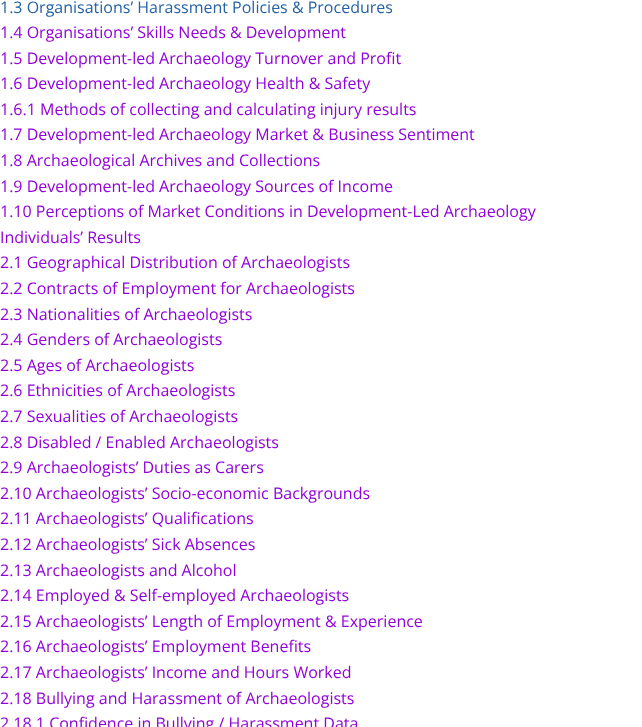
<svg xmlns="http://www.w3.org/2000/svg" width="642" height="727">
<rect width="100%" height="100%" fill="#fff"/>
<text x="0" y="13" style="font-family:Open Sans;font-size:16px;fill:#2662a4">1.3 Organisations’ Harassment Policies &amp; Procedures</text>
<text x="0" y="38" style="font-family:Open Sans;font-size:16px;fill:#9103d8">1.4 Organisations’ Skills Needs &amp; Development</text>
<text x="0" y="64" style="font-family:Open Sans;font-size:16px;fill:#9103d8">1.5 Development-led Archaeology Turnover and Profit</text>
<text x="0" y="89" style="font-family:Open Sans;font-size:16px;fill:#9103d8">1.6 Development-led Archaeology Health &amp; Safety</text>
<text x="0" y="115" style="font-family:Open Sans;font-size:16px;fill:#9103d8">1.6.1 Methods of collecting and calculating injury results</text>
<text x="0" y="140" style="font-family:Open Sans;font-size:16px;fill:#9103d8">1.7 Development-led Archaeology Market &amp; Business Sentiment</text>
<text x="0" y="166" style="font-family:Open Sans;font-size:16px;fill:#9103d8">1.8 Archaeological Archives and Collections</text>
<text x="0" y="192" style="font-family:Open Sans;font-size:16px;fill:#9103d8">1.9 Development-led Archaeology Sources of Income</text>
<text x="0" y="217" style="font-family:Open Sans;font-size:16px;fill:#9103d8">1.10 Perceptions of Market Conditions in Development-Led Archaeology</text>
<text x="0" y="243" style="font-family:Open Sans;font-size:16px;fill:#9103d8">Individuals’ Results</text>
<text x="0" y="268" style="font-family:Open Sans;font-size:16px;fill:#9103d8">2.1 Geographical Distribution of Archaeologists</text>
<text x="0" y="294" style="font-family:Open Sans;font-size:16px;fill:#9103d8">2.2 Contracts of Employment for Archaeologists</text>
<text x="0" y="320" style="font-family:Open Sans;font-size:16px;fill:#9103d8">2.3 Nationalities of Archaeologists</text>
<text x="0" y="345" style="font-family:Open Sans;font-size:16px;fill:#9103d8">2.4 Genders of Archaeologists</text>
<text x="0" y="371" style="font-family:Open Sans;font-size:16px;fill:#9103d8">2.5 Ages of Archaeologists</text>
<text x="0" y="396" style="font-family:Open Sans;font-size:16px;fill:#9103d8">2.6 Ethnicities of Archaeologists</text>
<text x="0" y="422" style="font-family:Open Sans;font-size:16px;fill:#9103d8">2.7 Sexualities of Archaeologists</text>
<text x="0" y="448" style="font-family:Open Sans;font-size:16px;fill:#9103d8">2.8 Disabled / Enabled Archaeologists</text>
<text x="0" y="473" style="font-family:Open Sans;font-size:16px;fill:#9103d8">2.9 Archaeologists’ Duties as Carers</text>
<text x="0" y="499" style="font-family:Open Sans;font-size:16px;fill:#9103d8">2.10 Archaeologists’ Socio-economic Backgrounds</text>
<text x="0" y="524" style="font-family:Open Sans;font-size:16px;fill:#9103d8">2.11 Archaeologists’ Qualifications</text>
<text x="0" y="550" style="font-family:Open Sans;font-size:16px;fill:#9103d8">2.12 Archaeologists’ Sick Absences</text>
<text x="0" y="576" style="font-family:Open Sans;font-size:16px;fill:#9103d8">2.13 Archaeologists and Alcohol</text>
<text x="0" y="601" style="font-family:Open Sans;font-size:16px;fill:#9103d8">2.14 Employed &amp; Self-employed Archaeologists</text>
<text x="0" y="627" style="font-family:Open Sans;font-size:16px;fill:#9103d8">2.15 Archaeologists’ Length of Employment &amp; Experience</text>
<text x="0" y="652" style="font-family:Open Sans;font-size:16px;fill:#9103d8">2.16 Archaeologists’ Employment Benefits</text>
<text x="0" y="678" style="font-family:Open Sans;font-size:16px;fill:#9103d8">2.17 Archaeologists’ Income and Hours Worked</text>
<text x="0" y="704" style="font-family:Open Sans;font-size:16px;fill:#9103d8">2.18 Bullying and Harassment of Archaeologists</text>
<text x="0" y="729" style="font-family:Open Sans;font-size:16px;fill:#9103d8">2.18.1 Confidence in Bullying / Harassment Data</text>
</svg>
